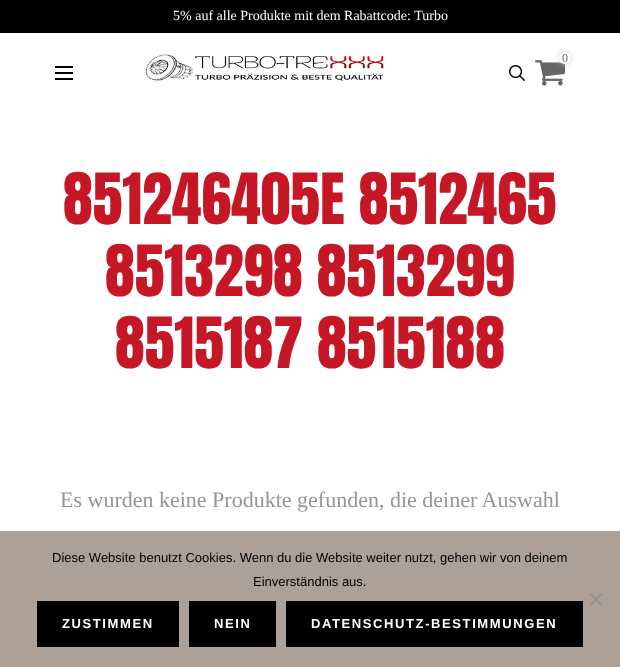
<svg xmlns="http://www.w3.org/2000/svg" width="620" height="667">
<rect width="100%" height="100%" fill="#fff"/>
<rect width="620" height="33" fill="#000"/>
<text x="173" y="20" style="font-family:Liberation Serif;font-size:14px;fill:#fff">5% auf alle Produkte mit dem Rabattcode: Turbo</text>
<image x="145" y="54" width="239" height="27" href="media/1.png"/>
<image x="535" y="60" width="30" height="26" href="media/2.png"/>
<rect x="559" y="52" width="12" height="12" rx="6" fill="#ccc" filter="blur(2.5px)"/>
<circle cx="565" cy="58" r="6" fill="#fff"/>
<text x="562" y="62" style="font-family:Liberation Serif;font-size:12px;fill:#666">0</text>
<image x="509" y="65" width="16" height="16" href="media/3.png"/>
<rect x="55" y="72" width="18" height="2" fill="#000"/>
<rect x="55" y="66" width="18" height="2" fill="#000"/>
<rect x="55" y="78" width="18" height="2" fill="#000"/>
<text x="63" y="224" style="font-family:Anton;font-size:60px;fill:#c61727">851246405E 8512465</text>
<text x="105" y="296" style="font-family:Anton;font-size:60px;fill:#c61727">8513298 8513299</text>
<text x="115" y="368" style="font-family:Anton;font-size:60px;fill:#c61727">8515187 8515188</text>
<text x="60" y="507" style="font-family:Liberation Serif;font-size:22px;fill:#959595">Es wurden keine Produkte gefunden, die deiner Auswahl</text>
<rect y="531" width="620" height="136" fill="#ada097"/>
<text x="52" y="562" style="font-family:Liberation Sans;font-size:13px;fill:#000">Diese Website benutzt Cookies. Wenn du die Website weiter nutzt, gehen wir von deinem</text>
<text x="253" y="586" style="font-family:Liberation Sans;font-size:13px;fill:#000">Einverständnis aus.</text>
<path d="M600.5 593.5l1.5 1l-10.5 11l-1.5-1.5z" fill="#97908c"/>
<path d="M590 594.5l1.5-1l10.5 10.5l-1.5 1.5z" fill="#97908c"/>
<rect x="37" y="601" width="142" height="46" fill="#000"/>
<text x="62" y="628" style="font-family:Liberation Sans;font-size:13px;font-weight:bold;letter-spacing:1.6px;fill:#fff">ZUSTIMMEN</text>
<rect x="189" y="601" width="87" height="46" fill="#000"/>
<text x="214" y="628" style="font-family:Liberation Sans;font-size:13px;font-weight:bold;letter-spacing:1.6px;fill:#fff">NEIN</text>
<rect x="286" y="601" width="297" height="46" fill="#000"/>
<text x="311" y="628" style="font-family:Liberation Sans;font-size:13px;font-weight:bold;letter-spacing:1.6px;fill:#fff">DATENSCHUTZ-BESTIMMUNGEN</text>
</svg>
